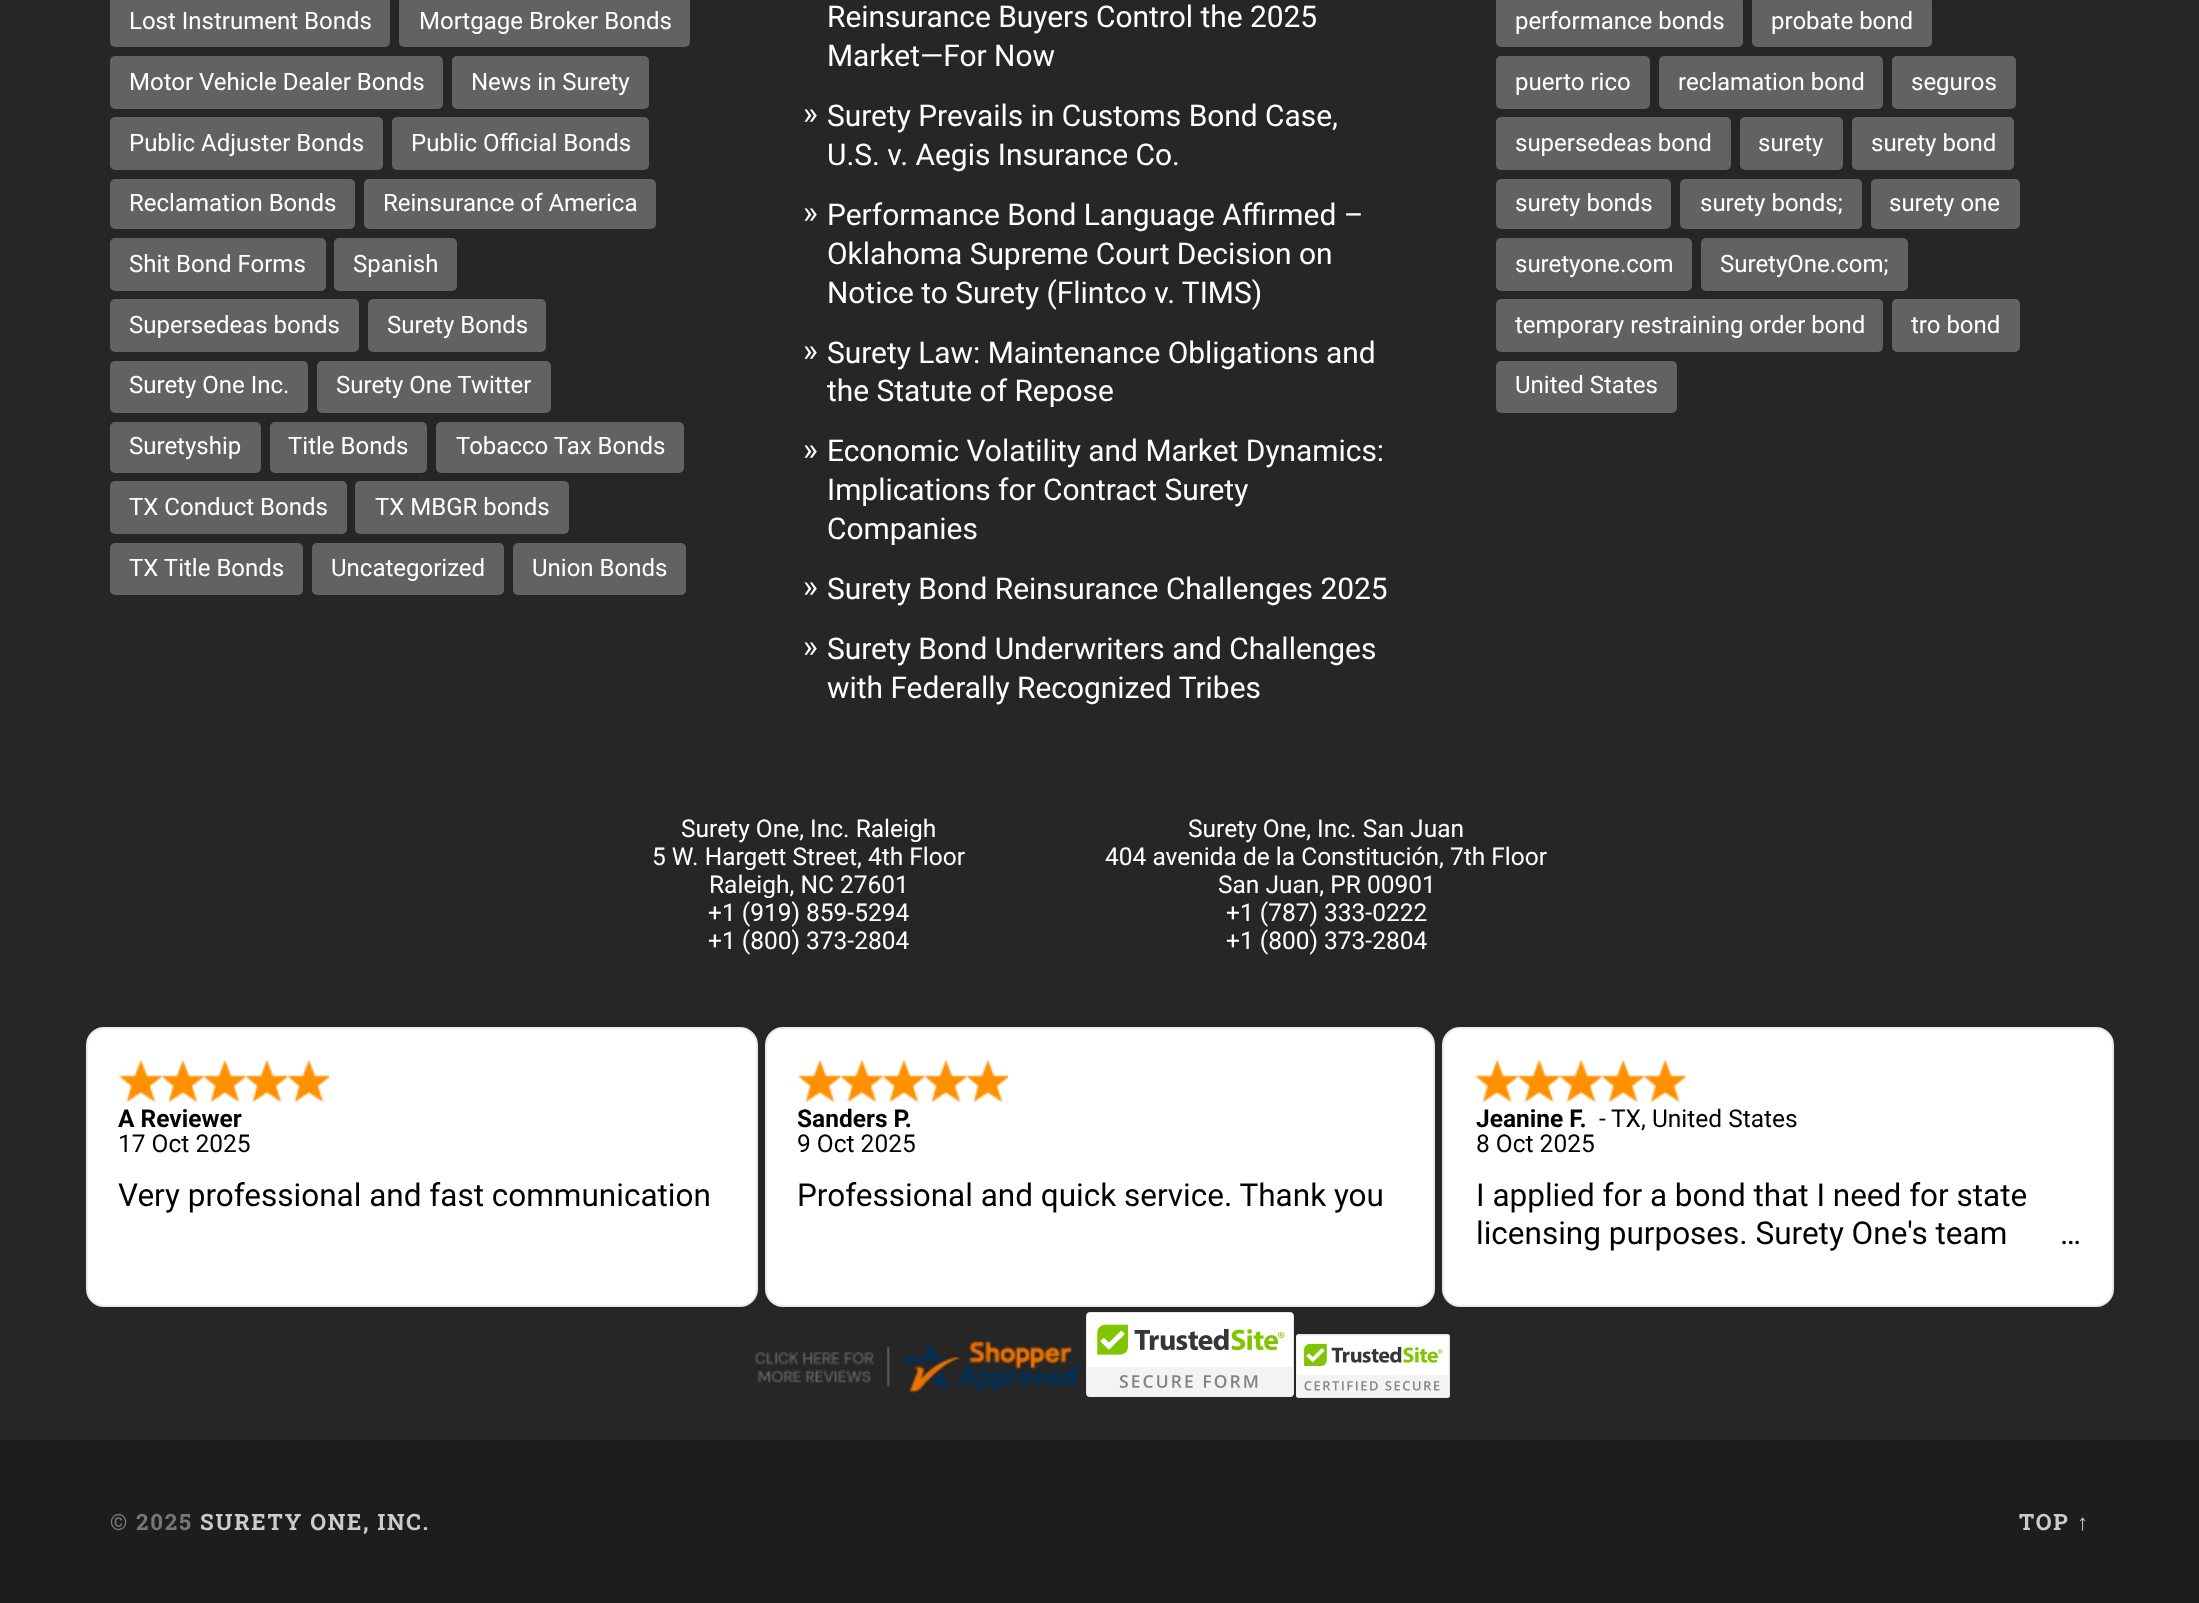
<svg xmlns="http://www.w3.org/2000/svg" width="2199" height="1603">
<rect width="100%" height="100%" fill="#262626"/>
<rect x="110" y="-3" width="280" height="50" rx="5" fill="#626262"/>
<text x="129" y="29" style="font-family:Roboto;font-size:24px;fill:#fff">Lost Instrument Bonds</text>
<rect x="399" y="-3" width="291" height="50" rx="5" fill="#626262"/>
<text x="419" y="29" style="font-family:Roboto;font-size:24px;fill:#fff">Mortgage Broker Bonds</text>
<rect x="110" y="56" width="333" height="53" rx="5" fill="#626262"/>
<text x="129" y="90" style="font-family:Roboto;font-size:24px;fill:#fff">Motor Vehicle Dealer Bonds</text>
<rect x="452" y="56" width="197" height="53" rx="5" fill="#626262"/>
<text x="471" y="90" style="font-family:Roboto;font-size:24px;fill:#fff">News in Surety</text>
<rect x="110" y="117" width="273" height="53" rx="5" fill="#626262"/>
<text x="129" y="151" style="font-family:Roboto;font-size:24px;fill:#fff">Public Adjuster Bonds</text>
<rect x="392" y="117" width="257" height="53" rx="5" fill="#626262"/>
<text x="411" y="151" style="font-family:Roboto;font-size:24px;fill:#fff">Public Official Bonds</text>
<rect x="110" y="179" width="245" height="50" rx="5" fill="#626262"/>
<text x="129" y="211" style="font-family:Roboto;font-size:24px;fill:#fff">Reclamation Bonds</text>
<rect x="364" y="179" width="292" height="50" rx="5" fill="#626262"/>
<text x="383" y="211" style="font-family:Roboto;font-size:24px;fill:#fff">Reinsurance of America</text>
<rect x="110" y="238" width="216" height="53" rx="5" fill="#626262"/>
<text x="129" y="272" style="font-family:Roboto;font-size:24px;fill:#fff">Shit Bond Forms</text>
<rect x="334" y="238" width="123" height="53" rx="5" fill="#626262"/>
<text x="353" y="272" style="font-family:Roboto;font-size:24px;fill:#fff">Spanish</text>
<rect x="110" y="299" width="249" height="53" rx="5" fill="#626262"/>
<text x="129" y="333" style="font-family:Roboto;font-size:24px;fill:#fff">Supersedeas bonds</text>
<rect x="368" y="299" width="178" height="53" rx="5" fill="#626262"/>
<text x="387" y="333" style="font-family:Roboto;font-size:24px;fill:#fff">Surety Bonds</text>
<rect x="110" y="361" width="198" height="52" rx="5" fill="#626262"/>
<text x="129" y="393" style="font-family:Roboto;font-size:24px;fill:#fff">Surety One Inc.</text>
<rect x="317" y="361" width="234" height="52" rx="5" fill="#626262"/>
<text x="336" y="393" style="font-family:Roboto;font-size:24px;fill:#fff">Surety One Twitter</text>
<rect x="110" y="422" width="151" height="51" rx="5" fill="#626262"/>
<text x="129" y="454" style="font-family:Roboto;font-size:24px;fill:#fff">Suretyship</text>
<rect x="270" y="422" width="157" height="51" rx="5" fill="#626262"/>
<text x="288" y="454" style="font-family:Roboto;font-size:24px;fill:#fff">Title Bonds</text>
<rect x="436" y="422" width="248" height="51" rx="5" fill="#626262"/>
<text x="456" y="454" style="font-family:Roboto;font-size:24px;fill:#fff">Tobacco Tax Bonds</text>
<rect x="110" y="481" width="237" height="53" rx="5" fill="#626262"/>
<text x="129" y="515" style="font-family:Roboto;font-size:24px;fill:#fff">TX Conduct Bonds</text>
<rect x="355" y="481" width="214" height="53" rx="5" fill="#626262"/>
<text x="375" y="515" style="font-family:Roboto;font-size:24px;fill:#fff">TX MBGR bonds</text>
<rect x="110" y="543" width="193" height="52" rx="5" fill="#626262"/>
<text x="129" y="576" style="font-family:Roboto;font-size:24px;fill:#fff">TX Title Bonds</text>
<rect x="312" y="543" width="192" height="52" rx="5" fill="#626262"/>
<text x="331" y="576" style="font-family:Roboto;font-size:24px;fill:#fff">Uncategorized</text>
<rect x="513" y="543" width="173" height="52" rx="5" fill="#626262"/>
<text x="532" y="576" style="font-family:Roboto;font-size:24px;fill:#fff">Union Bonds</text>
<text x="827" y="27" style="font-family:Roboto;font-size:29.9px;fill:#fff">Reinsurance Buyers Control the 2025</text>
<text x="827" y="66" style="font-family:Roboto;font-size:29.9px;fill:#fff">Market—For Now</text>
<text x="803" y="124" style="font-family:Roboto;font-size:31.5px;fill:#fff">»</text>
<text x="827" y="126" style="font-family:Roboto;font-size:29.9px;fill:#fff">Surety Prevails in Customs Bond Case,</text>
<text x="827" y="165" style="font-family:Roboto;font-size:29.9px;fill:#fff">U.S. v. Aegis Insurance Co.</text>
<text x="803" y="223" style="font-family:Roboto;font-size:31.5px;fill:#fff">»</text>
<text x="827" y="225" style="font-family:Roboto;font-size:29.9px;fill:#fff">Performance Bond Language Affirmed –</text>
<text x="827" y="264" style="font-family:Roboto;font-size:29.9px;fill:#fff">Oklahoma Supreme Court Decision on</text>
<text x="827" y="303" style="font-family:Roboto;font-size:29.9px;fill:#fff">Notice to Surety (Flintco v. TIMS)</text>
<text x="803" y="361" style="font-family:Roboto;font-size:31.5px;fill:#fff">»</text>
<text x="827" y="363" style="font-family:Roboto;font-size:29.9px;fill:#fff">Surety Law: Maintenance Obligations and</text>
<text x="827" y="401" style="font-family:Roboto;font-size:29.9px;fill:#fff">the Statute of Repose</text>
<text x="803" y="460" style="font-family:Roboto;font-size:31.5px;fill:#fff">»</text>
<text x="827" y="461" style="font-family:Roboto;font-size:29.9px;fill:#fff">Economic Volatility and Market Dynamics:</text>
<text x="827" y="500" style="font-family:Roboto;font-size:29.9px;fill:#fff">Implications for Contract Surety</text>
<text x="827" y="539" style="font-family:Roboto;font-size:29.9px;fill:#fff">Companies</text>
<text x="803" y="597" style="font-family:Roboto;font-size:31.5px;fill:#fff">»</text>
<text x="827" y="599" style="font-family:Roboto;font-size:29.9px;fill:#fff">Surety Bond Reinsurance Challenges 2025</text>
<text x="803" y="657" style="font-family:Roboto;font-size:31.5px;fill:#fff">»</text>
<text x="827" y="659" style="font-family:Roboto;font-size:29.9px;fill:#fff">Surety Bond Underwriters and Challenges</text>
<text x="827" y="698" style="font-family:Roboto;font-size:29.9px;fill:#fff">with Federally Recognized Tribes</text>
<rect x="1496" y="-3" width="247" height="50" rx="5" fill="#626262"/>
<text x="1515" y="29" style="font-family:Roboto;font-size:24px;fill:#fff">performance bonds</text>
<rect x="1752" y="-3" width="180" height="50" rx="5" fill="#626262"/>
<text x="1771" y="29" style="font-family:Roboto;font-size:24px;fill:#fff">probate bond</text>
<rect x="1496" y="56" width="154" height="53" rx="5" fill="#626262"/>
<text x="1515" y="90" style="font-family:Roboto;font-size:24px;fill:#fff">puerto rico</text>
<rect x="1659" y="56" width="224" height="53" rx="5" fill="#626262"/>
<text x="1678" y="90" style="font-family:Roboto;font-size:24px;fill:#fff">reclamation bond</text>
<rect x="1892" y="56" width="124" height="53" rx="5" fill="#626262"/>
<text x="1911" y="90" style="font-family:Roboto;font-size:24px;fill:#fff">seguros</text>
<rect x="1496" y="117" width="235" height="53" rx="5" fill="#626262"/>
<text x="1515" y="151" style="font-family:Roboto;font-size:24px;fill:#fff">supersedeas bond</text>
<rect x="1740" y="117" width="103" height="53" rx="5" fill="#626262"/>
<text x="1758" y="151" style="font-family:Roboto;font-size:24px;fill:#fff">surety</text>
<rect x="1852" y="117" width="162" height="53" rx="5" fill="#626262"/>
<text x="1871" y="151" style="font-family:Roboto;font-size:24px;fill:#fff">surety bond</text>
<rect x="1496" y="179" width="175" height="50" rx="5" fill="#626262"/>
<text x="1515" y="211" style="font-family:Roboto;font-size:24px;fill:#fff">surety bonds</text>
<rect x="1680" y="179" width="182" height="50" rx="5" fill="#626262"/>
<text x="1700" y="211" style="font-family:Roboto;font-size:24px;fill:#fff">surety bonds;</text>
<rect x="1871" y="179" width="149" height="50" rx="5" fill="#626262"/>
<text x="1889" y="211" style="font-family:Roboto;font-size:24px;fill:#fff">surety one</text>
<rect x="1496" y="238" width="196" height="53" rx="5" fill="#626262"/>
<text x="1515" y="272" style="font-family:Roboto;font-size:24px;fill:#fff">suretyone.com</text>
<rect x="1701" y="238" width="207" height="53" rx="5" fill="#626262"/>
<text x="1720" y="272" style="font-family:Roboto;font-size:24px;fill:#fff">SuretyOne.com;</text>
<rect x="1496" y="299" width="387" height="53" rx="5" fill="#626262"/>
<text x="1515" y="333" style="font-family:Roboto;font-size:24px;fill:#fff">temporary restraining order bond</text>
<rect x="1892" y="299" width="128" height="53" rx="5" fill="#626262"/>
<text x="1911" y="333" style="font-family:Roboto;font-size:24px;fill:#fff">tro bond</text>
<rect x="1496" y="361" width="181" height="52" rx="5" fill="#626262"/>
<text x="1515" y="393" style="font-family:Roboto;font-size:24px;fill:#fff">United States</text>
<text x="681" y="837" style="font-family:Roboto;font-size:24.5px;fill:#fff">Surety One, Inc. Raleigh</text>
<text x="652" y="865" style="font-family:Roboto;font-size:24.5px;fill:#fff">5 W. Hargett Street, 4th Floor</text>
<text x="709" y="893" style="font-family:Roboto;font-size:24.5px;fill:#fff">Raleigh, NC 27601</text>
<text x="708" y="921" style="font-family:Roboto;font-size:24.5px;fill:#fff">+1 (919) 859-5294</text>
<text x="708" y="949" style="font-family:Roboto;font-size:24.5px;fill:#fff">+1 (800) 373-2804</text>
<text x="1188" y="837" style="font-family:Roboto;font-size:24.5px;fill:#fff">Surety One, Inc. San Juan</text>
<text x="1105" y="865" style="font-family:Roboto;font-size:24.5px;fill:#fff">404 avenida de la Constitución, 7th Floor</text>
<text x="1218" y="893" style="font-family:Roboto;font-size:24.5px;fill:#fff">San Juan, PR 00901</text>
<text x="1226" y="921" style="font-family:Roboto;font-size:24.5px;fill:#fff">+1 (787) 333-0222</text>
<text x="1226" y="949" style="font-family:Roboto;font-size:24.5px;fill:#fff">+1 (800) 373-2804</text>
<rect x="87" y="1028" width="670" height="278" rx="17" fill="#fff" stroke="#ebebeb" stroke-width="2"/>
<image x="119" y="1060" width="42" height="42" href="media/1.png"/>
<image x="161" y="1060" width="42" height="42" href="media/2.png"/>
<image x="203" y="1060" width="42" height="42" href="media/2.png"/>
<image x="245" y="1060" width="42" height="42" href="media/1.png"/>
<image x="287" y="1060" width="42" height="42" href="media/1.png"/>
<text x="118" y="1127" style="font-family:Roboto;font-size:24.5px;font-weight:bold;fill:#000">A Reviewer</text>
<text x="118" y="1152" style="font-family:Roboto;font-size:24.5px;fill:#000">17 Oct 2025</text>
<text x="118" y="1206" style="font-family:Roboto;font-size:31.5px;fill:#000">Very professional and fast communication</text>
<rect x="766" y="1028" width="668" height="278" rx="17" fill="#fff" stroke="#ebebeb" stroke-width="2"/>
<image x="798" y="1060" width="42" height="42" href="media/2.png"/>
<image x="840" y="1060" width="42" height="42" href="media/2.png"/>
<image x="882" y="1060" width="42" height="42" href="media/2.png"/>
<image x="924" y="1060" width="42" height="42" href="media/2.png"/>
<image x="966" y="1060" width="42" height="42" href="media/2.png"/>
<text x="797" y="1127" style="font-family:Roboto;font-size:24.5px;font-weight:bold;fill:#000">Sanders P.</text>
<text x="797" y="1152" style="font-family:Roboto;font-size:24.5px;fill:#000">9 Oct 2025</text>
<text x="797" y="1206" style="font-family:Roboto;font-size:31.5px;fill:#000">Professional and quick service. Thank you</text>
<rect x="1443" y="1028" width="670" height="278" rx="17" fill="#fff" stroke="#ebebeb" stroke-width="2"/>
<image x="1475" y="1060" width="43" height="42" href="media/3.png"/>
<image x="1517" y="1060" width="43" height="42" href="media/4.png"/>
<image x="1559" y="1060" width="43" height="42" href="media/5.png"/>
<image x="1601" y="1060" width="43" height="42" href="media/6.png"/>
<image x="1643" y="1060" width="43" height="42" href="media/7.png"/>
<text x="1476" y="1127" style="font-family:Roboto;font-size:24.5px;font-weight:bold;fill:#000">Jeanine F.</text>
<text x="1599" y="1127" style="font-family:Roboto;font-size:24.5px;fill:#000">-</text>
<text x="1611" y="1127" style="font-family:Roboto;font-size:24.5px;fill:#000">TX, United States</text>
<text x="1476" y="1152" style="font-family:Roboto;font-size:24.5px;fill:#000">8 Oct 2025</text>
<text x="1476" y="1206" style="font-family:Roboto;font-size:31.5px;fill:#000">I applied for a bond that I need for state</text>
<text x="1476" y="1244" style="font-family:Roboto;font-size:31.5px;fill:#000">licensing purposes. Surety One's team</text>
<text x="2060" y="1244" style="font-family:Roboto;font-size:31.5px;fill:#000">…</text>
<image x="754" y="1341" width="328" height="52" href="media/8.png"/>
<image x="1086" y="1312" width="208" height="85" href="media/9.png"/>
<image x="1296" y="1334" width="154" height="64" href="media/10.png"/>
<rect y="1440" width="2199" height="163" fill="#1d1d1d"/>
<text x="110" y="1530" style="font-family:Roboto Slab;font-size:22.4px;font-weight:bold;letter-spacing:1.75px;fill:#767676">© 2025</text>
<text x="200" y="1530" style="font-family:Roboto Slab;font-size:22.4px;font-weight:bold;letter-spacing:1.75px;fill:#ccc">SURETY ONE, INC.</text>
<text x="2019" y="1530" style="font-family:Roboto Slab;font-size:22.4px;font-weight:bold;letter-spacing:1.75px;fill:#ccc">TOP</text>
<text x="2077" y="1530" style="font-family:Liberation Sans;font-size:22.4px;font-weight:bold;letter-spacing:1.75px;fill:#ccc">↑</text>
</svg>
